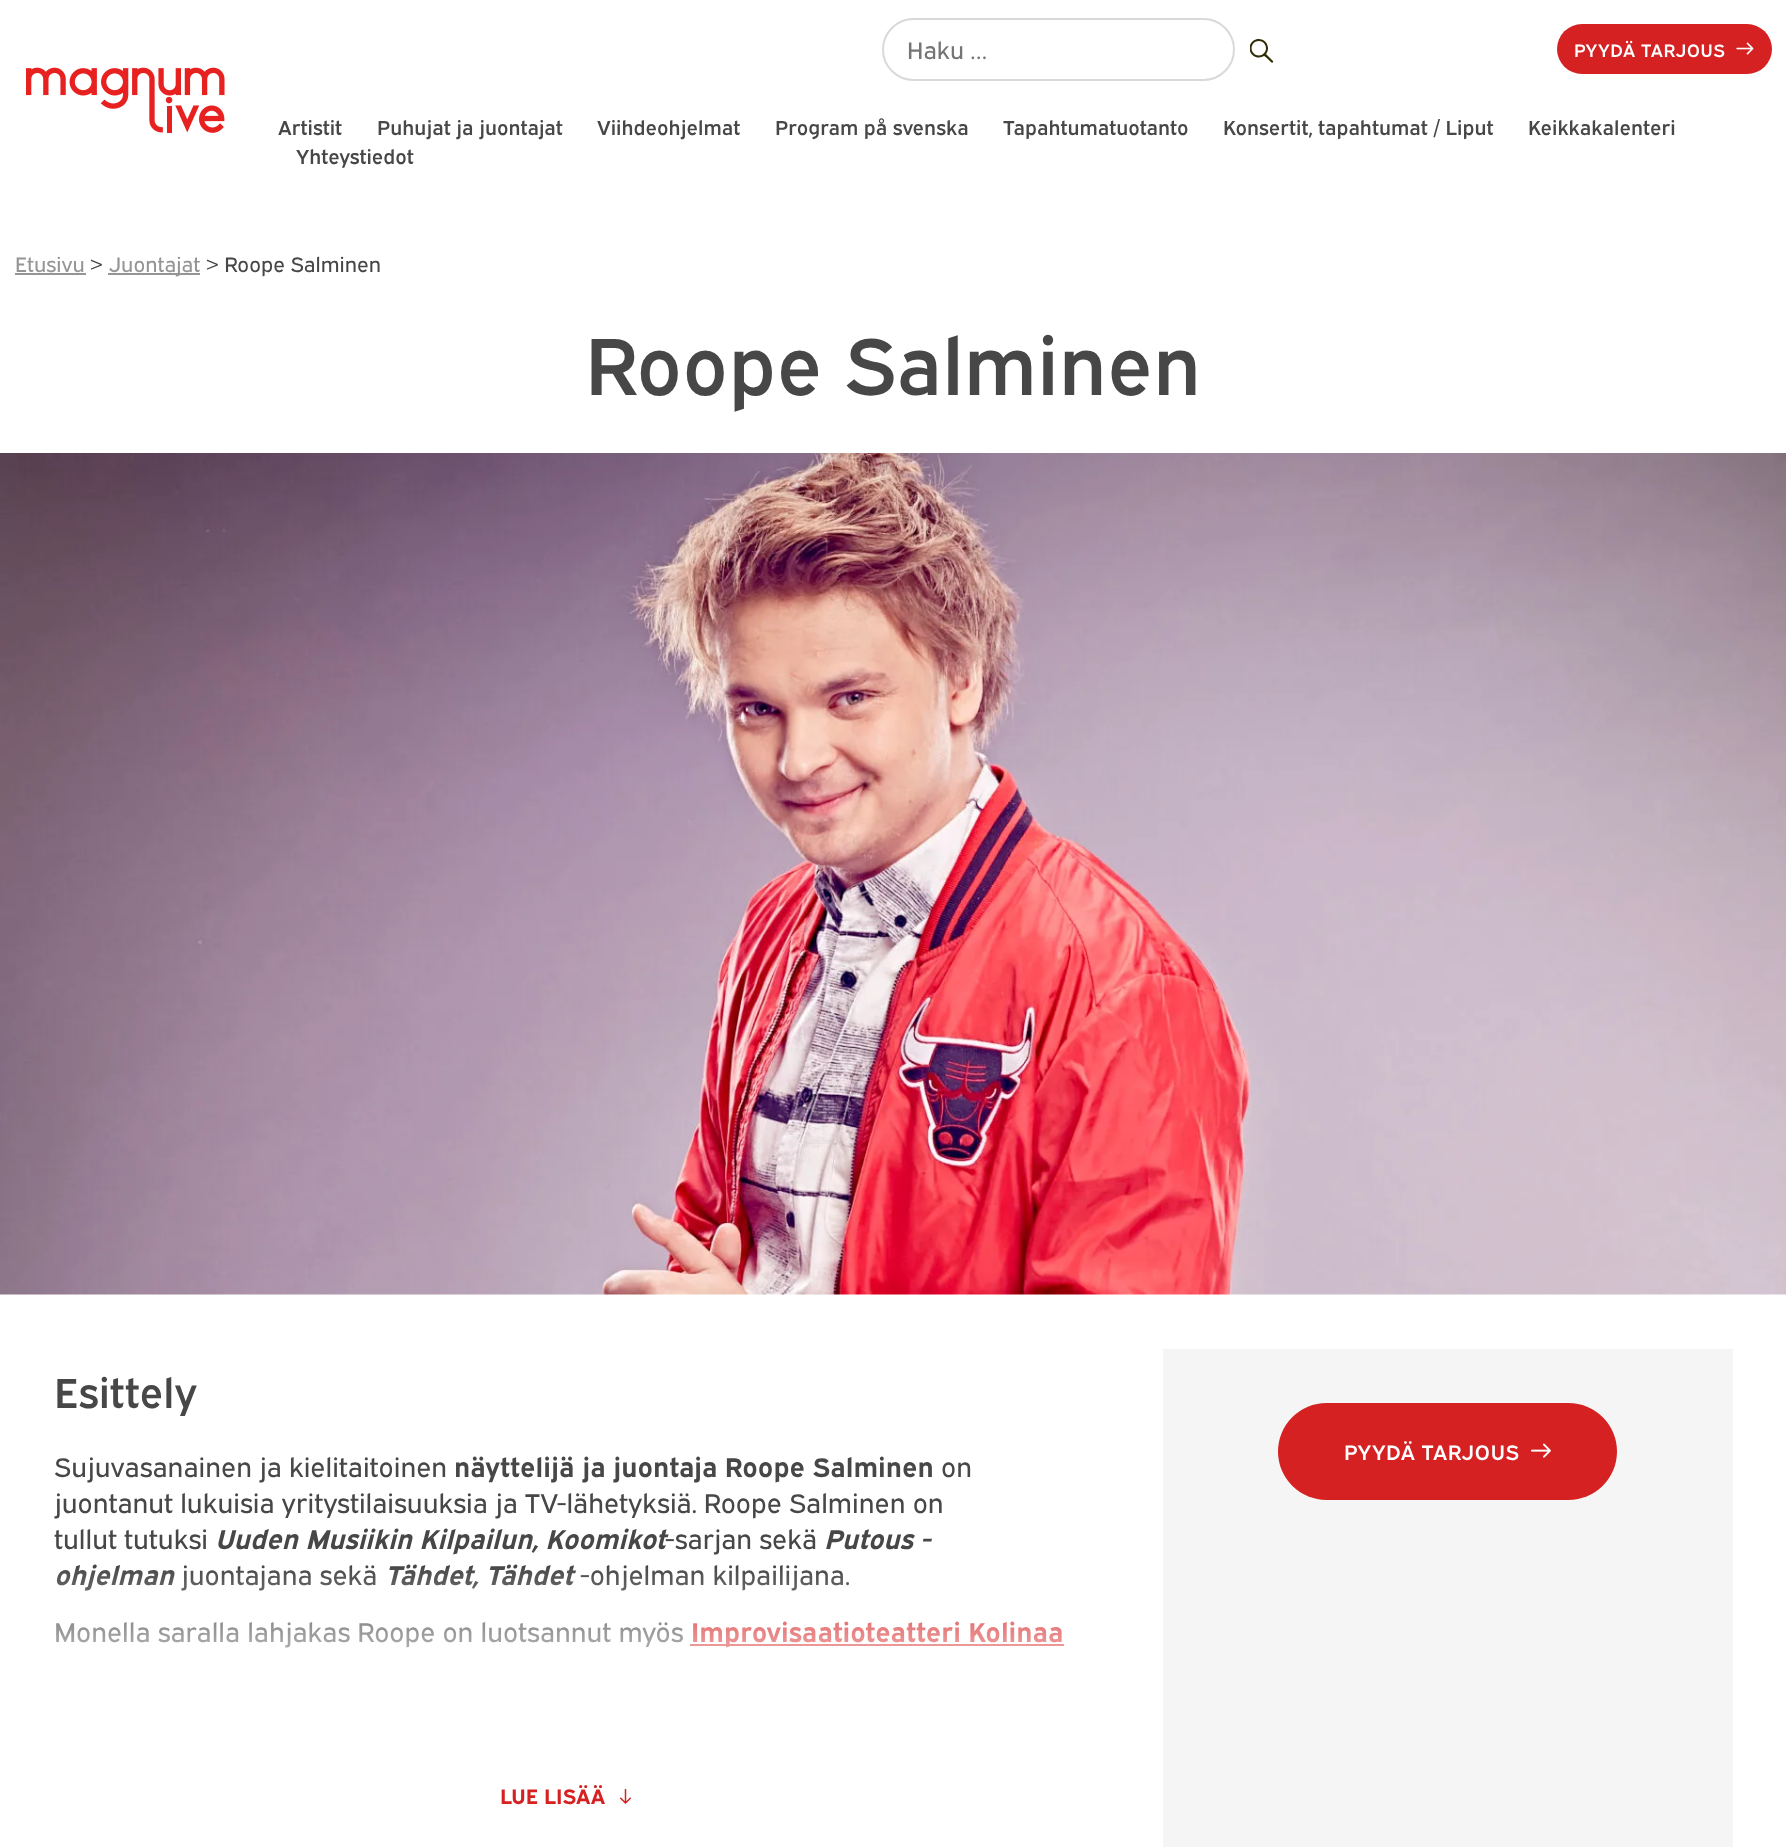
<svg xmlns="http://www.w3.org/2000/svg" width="1786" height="1847">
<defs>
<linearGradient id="g1" gradientUnits="userSpaceOnUse" x1="566" y1="1565" x2="566" y2="1715"><stop offset="0" stop-color="#fff" stop-opacity="0"/><stop offset="1" stop-color="#fff"/></linearGradient>
</defs>
<rect width="100%" height="100%" fill="#fff"/>
<image x="26" y="67" width="199" height="66" href="media/1.png"/>
<rect x="883" y="19" width="351" height="61" rx="30.5" fill="none" stroke="#d9d9d9" stroke-width="2"/>
<text x="907" y="59" style="font-family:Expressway;font-size:24px;fill:#757575">Haku …</text>
<image x="1250" y="39" width="24" height="24" href="media/2.png"/>
<rect x="1557" y="24" width="215" height="50" rx="25" fill="#d52122"/>
<text x="1574" y="57" style="font-family:'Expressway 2';font-size:18px;letter-spacing:0.5px;fill:#fff">PYYDÄ TARJOUS</text>
<image x="1736" y="42" width="18" height="13" href="media/3.png"/>
<text x="278" y="135" style="font-family:'Expressway 2';font-size:20.25px;fill:#474747">Artistit</text>
<text x="377" y="135" style="font-family:'Expressway 2';font-size:20.25px;fill:#474747">Puhujat ja juontajat</text>
<text x="597" y="135" style="font-family:'Expressway 2';font-size:20.25px;fill:#474747">Viihdeohjelmat</text>
<text x="775" y="135" style="font-family:'Expressway 2';font-size:20.25px;fill:#474747">Program på svenska</text>
<text x="1003" y="135" style="font-family:'Expressway 2';font-size:20.25px;fill:#474747">Tapahtumatuotanto</text>
<text x="1223" y="135" style="font-family:'Expressway 2';font-size:20.25px;fill:#474747">Konsertit, tapahtumat / Liput</text>
<text x="1528" y="135" style="font-family:'Expressway 2';font-size:20.25px;fill:#474747">Keikkakalenteri</text>
<text x="296" y="164" style="font-family:'Expressway 2';font-size:20.25px;fill:#474747">Yhteystiedot</text>
<text x="15" y="272" style="font-family:Expressway;font-size:21px;fill:#959595">Etusivu</text>
<rect x="15" y="273" width="71" height="2" fill="#959595"/>
<text x="90" y="272" style="font-family:Expressway;font-size:21px;fill:#474747">&gt;</text>
<rect x="108" y="273" width="92" height="2" fill="#959595"/>
<text x="109" y="272" style="font-family:Expressway;font-size:21px;fill:#959595">Juontajat</text>
<text x="206" y="272" style="font-family:Expressway;font-size:21px;fill:#474747">&gt; Roope Salminen</text>
<text x="585" y="395" style="font-family:'Expressway 2';font-size:81px;fill:#474747">Roope Salminen</text>
<image x="0" y="453" width="1786" height="842" href="media/4.png"/>
<text x="54" y="1408" style="font-family:'Expressway 2';font-size:42px;fill:#474747">Esittely</text>
<text x="54" y="1477" style="font-family:Expressway;font-size:27px;fill:#474747">Sujuvasanainen ja kielitaitoinen</text>
<text x="454" y="1477" style="font-family:Expressway;font-size:27px;font-weight:bold;fill:#474747">näyttelijä ja juontaja Roope Salminen</text>
<text x="941" y="1477" style="font-family:Expressway;font-size:27px;fill:#474747">on</text>
<text x="54" y="1513" style="font-family:Expressway;font-size:27px;fill:#474747">juontanut lukuisia yritystilaisuuksia ja TV-lähetyksiä. Roope Salminen on</text>
<text x="54" y="1549" style="font-family:Expressway;font-size:27px;fill:#474747">tullut tutuksi</text>
<text x="215" y="1549" style="font-family:Expressway;font-size:27px;font-weight:bold;font-style:italic;fill:#474747">Uuden Musiikin Kilpailun, Koomikot</text>
<text x="665" y="1549" style="font-family:Expressway;font-size:27px;fill:#474747">-sarjan sekä</text>
<text x="824" y="1549" style="font-family:Expressway;font-size:27px;font-weight:bold;font-style:italic;fill:#474747">Putous -</text>
<text x="54" y="1585" style="font-family:Expressway;font-size:27px;font-weight:bold;font-style:italic;fill:#474747">ohjelman</text>
<text x="181" y="1585" style="font-family:Expressway;font-size:27px;fill:#474747">juontajana sekä</text>
<text x="385" y="1585" style="font-family:Expressway;font-size:27px;font-weight:bold;font-style:italic;fill:#474747">Tähdet, Tähdet</text>
<text x="580" y="1585" style="font-family:Expressway;font-size:27px;fill:#474747">-ohjelman kilpailijana.</text>
<text x="54" y="1642" style="font-family:Expressway;font-size:27px;fill:#474747">Monella saralla lahjakas Roope on luotsannut myös</text>
<rect x="690" y="1644" width="374" height="2" fill="#d52122"/>
<text x="691" y="1642" style="font-family:Expressway;font-size:27px;font-weight:bold;fill:#d52122">Improvisaatioteatteri Kolinaa</text>
<rect x="56" y="1568" width="1008" height="80" fill="url(#g1)"/>
<text x="500" y="1804" style="font-family:Expressway;font-size:21px;font-weight:bold;fill:#d52122">LUE LISÄÄ</text>
<image x="620" y="1788" width="11" height="16" href="media/5.png"/>
<rect x="1163" y="1349" width="570" height="498" fill="#f5f5f5"/>
<rect x="1278" y="1403" width="339" height="97" rx="48.5" fill="#d52122"/>
<text x="1344" y="1460" style="font-family:'Expressway 2';font-size:21px;letter-spacing:0.5px;fill:#fff">PYYDÄ TARJOUS</text>
<image x="1531" y="1443" width="20" height="15" href="media/6.png"/>
</svg>
